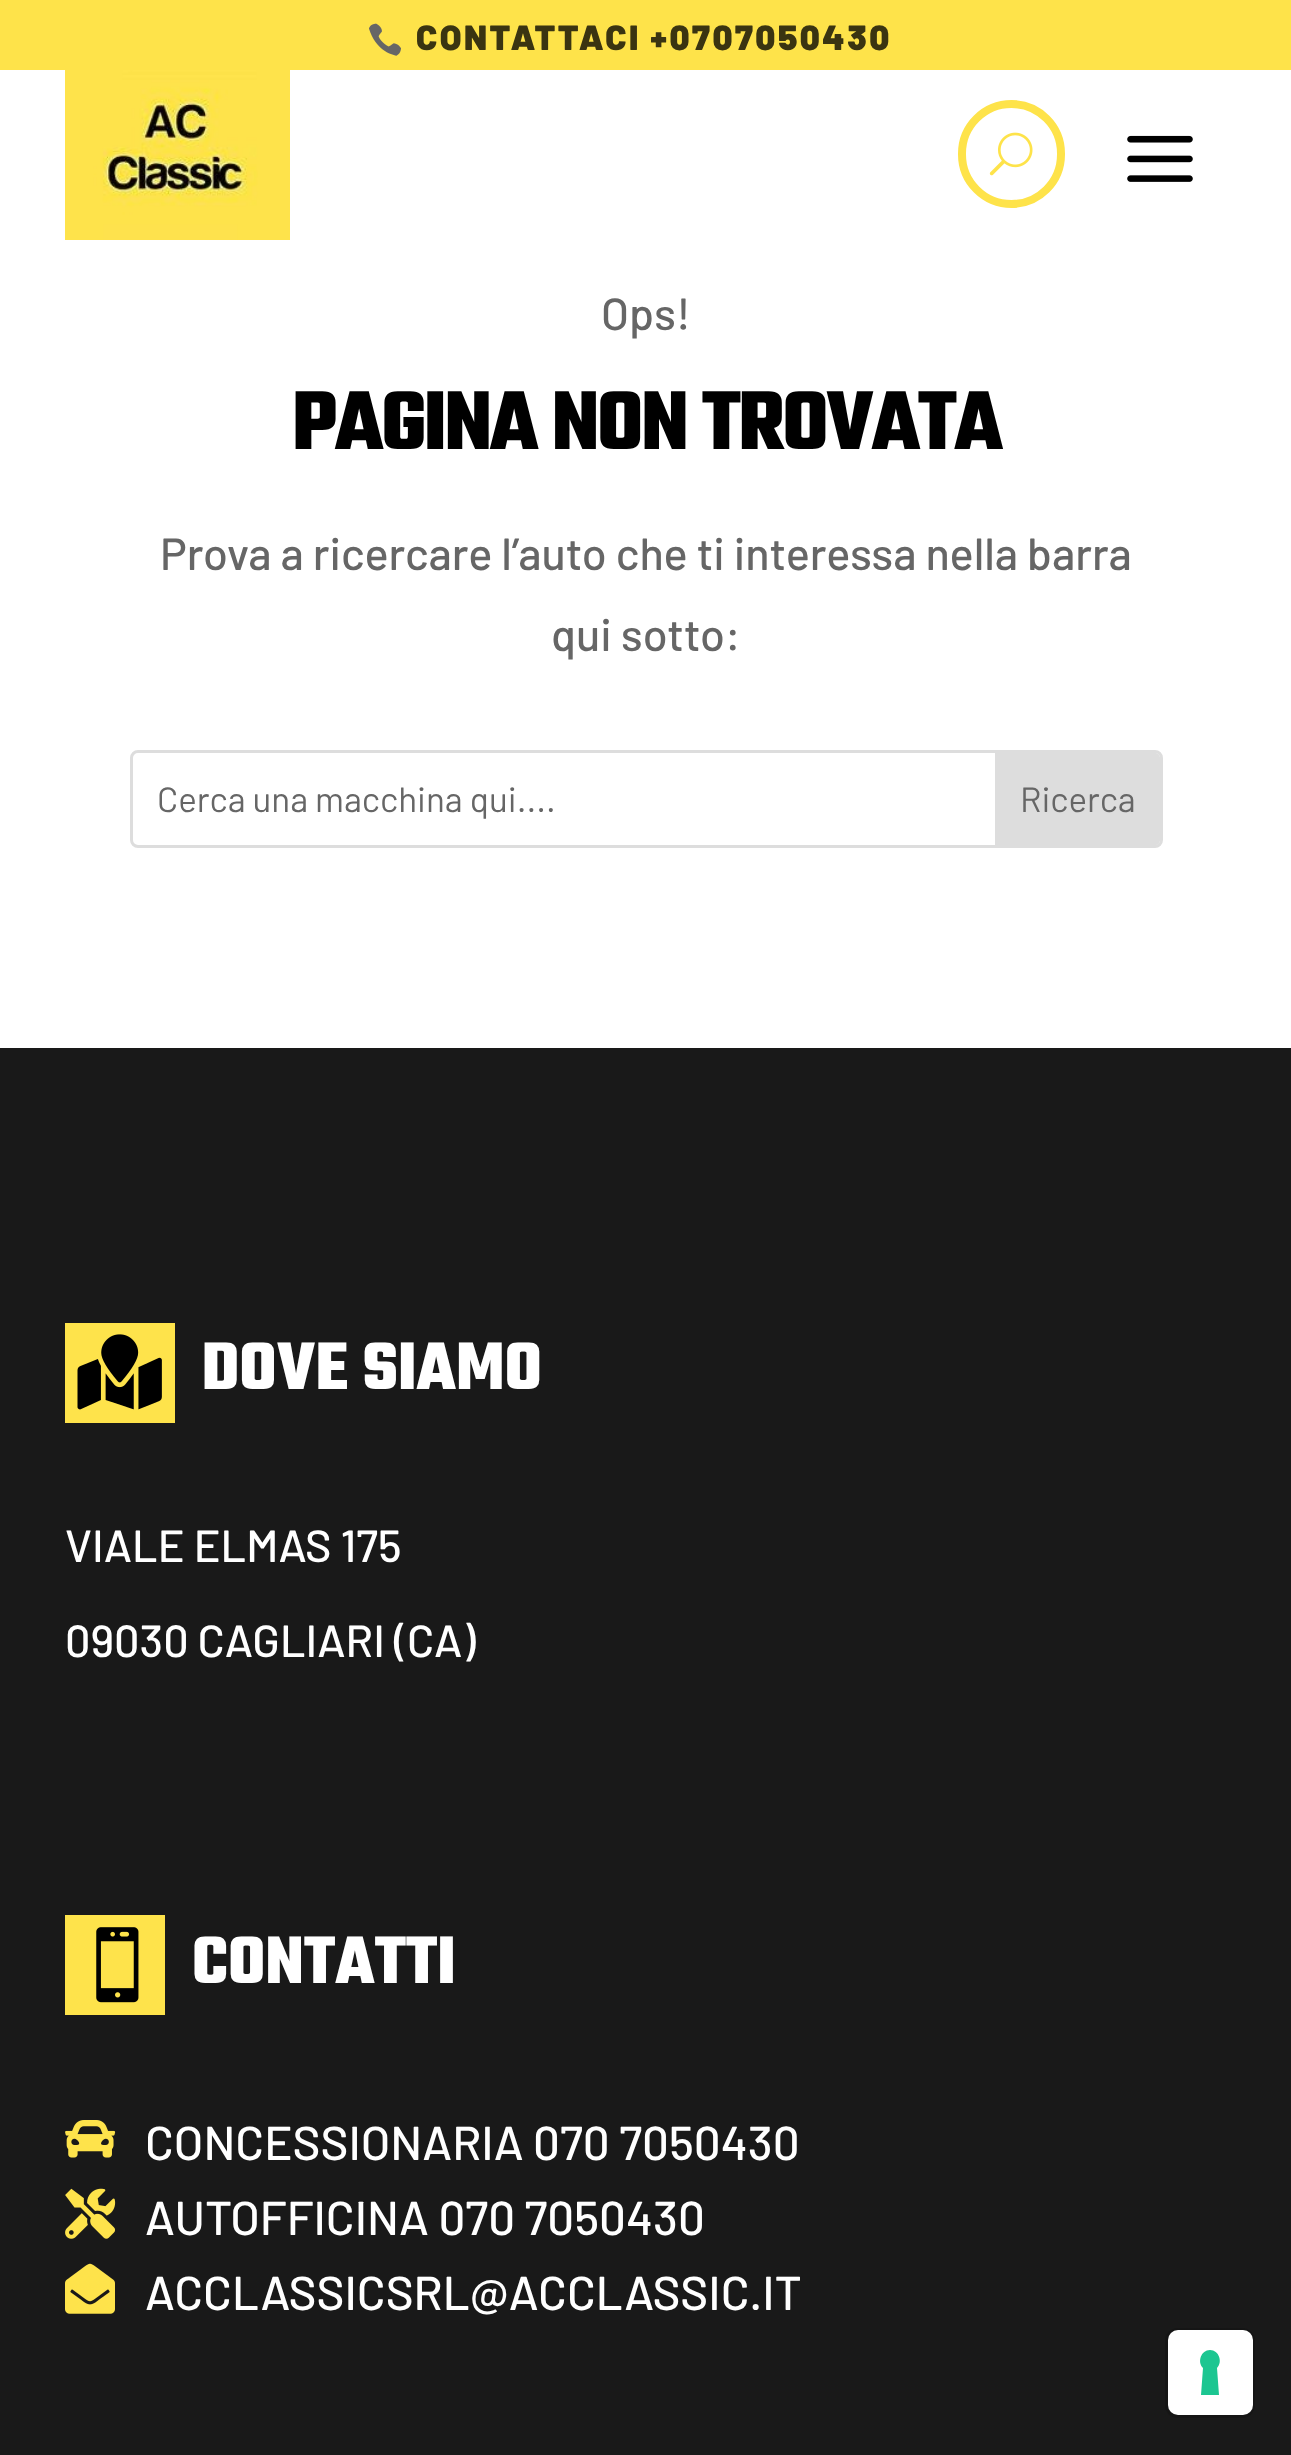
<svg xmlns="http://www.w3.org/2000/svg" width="1291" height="2455">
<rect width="100%" height="100%" fill="#fff"/>
<rect width="1291" height="70" fill="#fee34a"/>
<image x="369" y="23" width="32" height="33" href="media/1.png"/>
<text x="416" y="50" style="font-family:Barlow;font-size:35px;font-weight:900;letter-spacing:2.5px;fill:#3a3411">CONTATTACI +0707050430</text>
<image x="65" y="70" width="225" height="170" href="media/2.png"/>
<rect x="962" y="104" width="99" height="100" rx="49.5" fill="none" stroke="#fee34a" stroke-width="8"/>
<image x="989" y="132" width="44" height="44" href="media/3.png"/>
<image x="1127" y="135" width="66" height="47" href="media/4.png"/>
<text x="601" y="330" style="font-family:Barlow;font-size:45px;font-weight:500;fill:#666">Ops!</text>
<text x="292" y="449" style="font-family:Teko;font-size:90px;font-weight:bold;letter-spacing:-2.5px;fill:#000">PAGINA NON TROVATA</text>
<text x="160" y="570" style="font-family:Barlow;font-size:45px;font-weight:500;fill:#666">Prova a ricercare l’auto che ti interessa nella barra</text>
<text x="551" y="651" style="font-family:Barlow;font-size:45px;font-weight:500;fill:#666">qui sotto:</text>
<rect x="131.5" y="751.5" width="1030" height="95" rx="6.5" fill="none" stroke="#ddd" stroke-width="3"/>
<text x="157" y="812" style="font-family:Barlow;font-size:35px;fill:#666">Cerca una macchina qui....</text>
<path d="M995 753h160c3 0 5 2 5 5v82c0 3-2 5-5 5h-160z" fill="#ddd"/>
<text x="1020" y="812" style="font-family:Barlow;font-size:35px;fill:#666">Ricerca</text>
<rect y="1048" width="1291" height="1407" fill="#191919"/>
<rect x="65" y="1323" width="110" height="100" fill="#fee34b"/>
<image x="77" y="1334" width="85" height="76" href="media/5.png"/>
<text x="201" y="1389" style="font-family:Teko;font-size:72.5px;font-weight:bold;fill:#fff">DOVE SIAMO</text>
<text x="65" y="1562" style="font-family:Barlow;font-size:45px;font-weight:500;fill:#fff">VIALE ELMAS 175</text>
<text x="65" y="1657" style="font-family:Barlow;font-size:45px;font-weight:500;fill:#fff">09030 CAGLIARI (CA)</text>
<rect x="65" y="1915" width="100" height="100" fill="#fee34b"/>
<image x="96" y="1927" width="43" height="76" href="media/6.png"/>
<text x="192" y="1983" style="font-family:Teko;font-size:72.5px;font-weight:bold;fill:#fff">CONTATTI</text>
<image x="65" y="2120" width="51" height="38" href="media/7.png"/>
<text x="145" y="2160" style="font-family:Barlow;font-size:47.5px;font-weight:500;fill:#fff">CONCESSIONARIA 070 7050430</text>
<image x="65" y="2188" width="51" height="51" href="media/8.png"/>
<text x="145" y="2235" style="font-family:Barlow;font-size:47.5px;font-weight:500;fill:#fff">AUTOFFICINA 070 7050430</text>
<image x="65" y="2263" width="50" height="51" href="media/9.png"/>
<text x="145" y="2310" style="font-family:Barlow;font-size:47.5px;font-weight:500;fill:#fff">ACCLASSICSRL@ACCLASSIC.IT</text>
<rect x="1166.5" y="2329.5" width="87" height="87" rx="11.5" fill="none" stroke="#151515" stroke-width="3"/>
<rect x="1168" y="2330" width="85" height="85" rx="10" fill="#fff"/>
<path d="M1210 2350c9 0 13 12 7 18l2 27h-18l2-27c-6-6-2-18 7-18z" fill="#1cc691" fill-rule="evenodd"/>
</svg>
